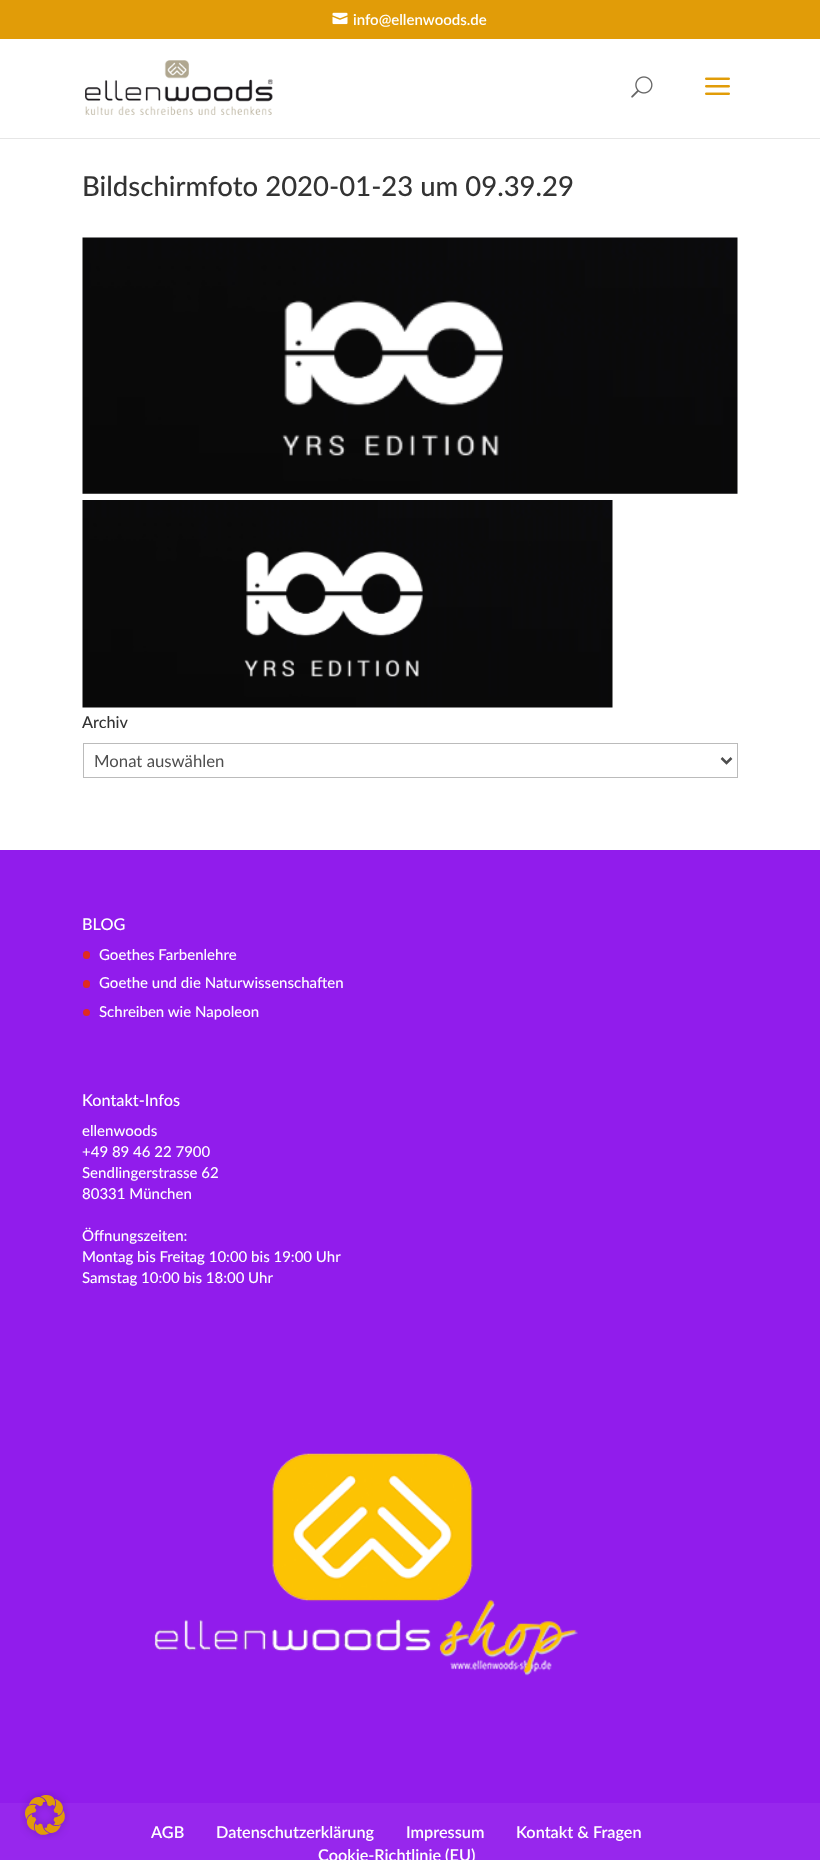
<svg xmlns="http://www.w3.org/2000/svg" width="820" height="1860">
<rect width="100%" height="100%" fill="#fff"/>
<rect y="850" width="820" height="953" fill="#911cec"/>
<rect y="1803" width="820" height="57" fill="#9727ed"/>
<image x="20" y="1790" width="50" height="50" href="media/1.png"/>
<rect width="820" height="39" fill="#e19c08"/>
<image x="332" y="12" width="16" height="13" href="media/2.png"/>
<text x="353" y="25" style="font-family:Lato;font-size:15px;font-weight:600;fill:#fff">info@ellenwoods.de</text>
<rect y="138" width="820" height="1" fill="#e6e6e6"/>
<image x="85" y="60" width="188" height="55" href="media/3.png"/>
<image x="631" y="76" width="22" height="22" href="media/4.png"/>
<image x="705" y="77" width="25" height="18" href="media/5.png"/>
<text x="82" y="196" style="font-family:Lato;font-size:27.5px;font-weight:500;fill:#333">Bildschirmfoto 2020-01-23 um 09.39.29</text>
<image x="82" y="237" width="656" height="257" href="media/6.png"/>
<image x="82" y="500" width="531" height="208" href="media/7.png"/>
<text x="82" y="728" style="font-family:Lato;font-size:16.25px;font-weight:500;fill:#333">Archiv</text>
<rect x="83.5" y="743.5" width="654" height="34" fill="none" stroke="#bbb"/>
<path d="M721.5 758l5 5l5-5" fill="none" stroke="#4e4e4e" stroke-width="2.5"/>
<text x="94" y="767" style="font-family:Lato;font-size:16.75px;fill:#4e4e4e">Monat auswählen</text>
<text x="82" y="930" style="font-family:Lato;font-size:16.25px;font-weight:500;fill:#fff">BLOG</text>
<rect x="83" y="951" width="7" height="8" rx="3.5" fill="#e02b20"/>
<text x="99" y="960" style="font-family:Lato;font-size:15px;font-weight:500;fill:#fff">Goethes Farbenlehre</text>
<rect x="83" y="980" width="7" height="8" rx="3.5" fill="#e02b20"/>
<text x="99" y="988" style="font-family:Lato;font-size:15px;font-weight:500;fill:#fff">Goethe und die Naturwissenschaften</text>
<circle cx="86.5" cy="1012.5" r="3.5" fill="#e02b20"/>
<text x="99" y="1017" style="font-family:Lato;font-size:15px;font-weight:500;fill:#fff">Schreiben wie Napoleon</text>
<text x="82" y="1106" style="font-family:Lato;font-size:16.25px;font-weight:500;fill:#fff">Kontakt-Infos</text>
<text x="82" y="1136" style="font-family:Lato;font-size:15px;font-weight:500;fill:#fff">ellenwoods</text>
<text x="82" y="1157" style="font-family:Lato;font-size:15px;font-weight:500;fill:#fff">+49 89 46 22 7900</text>
<text x="82" y="1178" style="font-family:Lato;font-size:15px;font-weight:500;fill:#fff">Sendlingerstrasse 62</text>
<text x="82" y="1199" style="font-family:Lato;font-size:15px;font-weight:500;fill:#fff">80331 München</text>
<text x="82" y="1241" style="font-family:Lato;font-size:15px;font-weight:500;fill:#fff">Öffnungszeiten:</text>
<text x="82" y="1262" style="font-family:Lato;font-size:15px;font-weight:500;fill:#fff">Montag bis Freitag 10:00 bis 19:00 Uhr</text>
<text x="82" y="1283" style="font-family:Lato;font-size:15px;font-weight:500;fill:#fff">Samstag 10:00 bis 18:00 Uhr</text>
<image x="154" y="1453" width="424" height="223" href="media/8.png"/>
<text x="151" y="1838" style="font-family:Lato;font-size:16.25px;font-weight:600;fill:#fff">AGB</text>
<text x="216" y="1838" style="font-family:Lato;font-size:16.25px;font-weight:600;fill:#fff">Datenschutzerklärung</text>
<text x="406" y="1838" style="font-family:Lato;font-size:16.25px;font-weight:600;fill:#fff">Impressum</text>
<text x="516" y="1838" style="font-family:Lato;font-size:16.25px;font-weight:600;fill:#fff">Kontakt &amp; Fragen</text>
<text x="318" y="1861" style="font-family:Lato;font-size:16.25px;font-weight:600;fill:#fff">Cookie-Richtlinie (EU)</text>
</svg>
